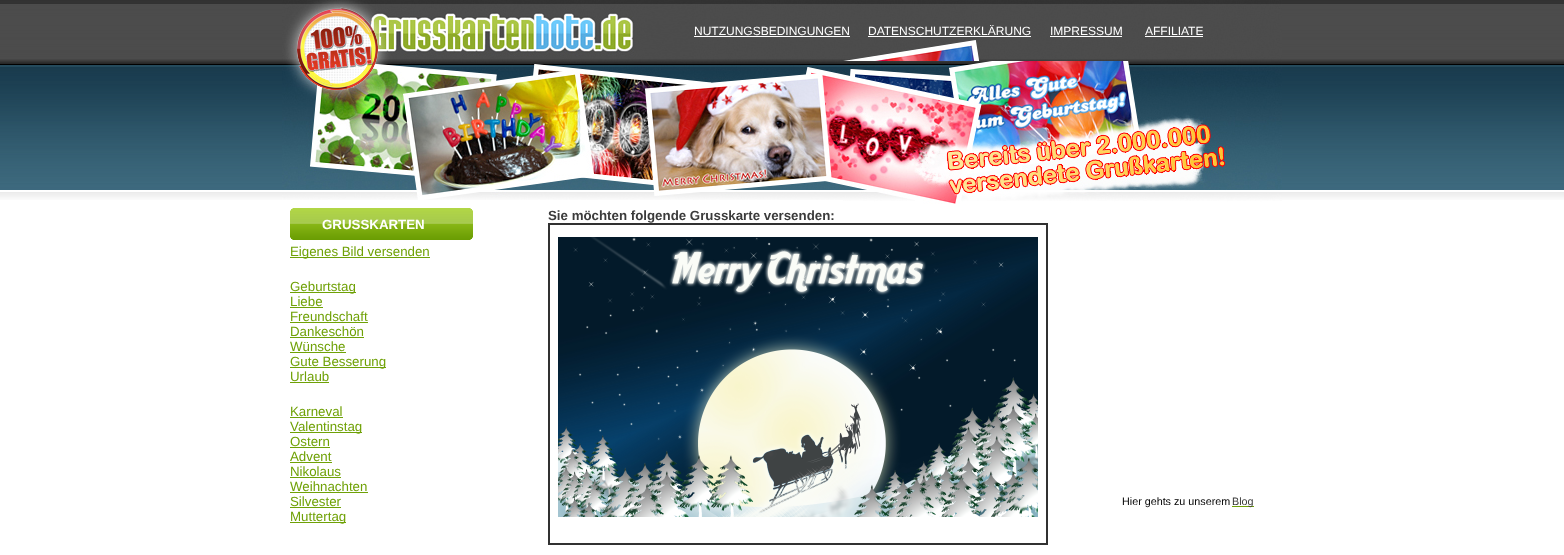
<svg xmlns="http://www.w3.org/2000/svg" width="1564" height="555">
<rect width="100%" height="100%" fill="#fff"/>
<image x="0" y="0" width="1564" height="200" href="media/1.png"/>
<image x="282" y="0" width="363" height="61" href="media/2.png"/>
<image x="645" y="0" width="49" height="61" href="media/3.png"/>
<image x="694" y="0" width="588" height="61" href="media/4.png"/>
<text x="694" y="35" style="font-family:Liberation Sans;font-size:12px;fill:#fff">NUTZUNGSBEDINGUNGEN</text>
<rect x="694" y="36" width="156" height="1" fill="#fff"/>
<text x="868" y="35" style="font-family:Liberation Sans;font-size:12px;fill:#fff">DATENSCHUTZERKLÄRUNG</text>
<rect x="868" y="36" width="163" height="1" fill="#fff"/>
<text x="1050" y="35" style="font-family:Liberation Sans;font-size:12px;fill:#fff">IMPRESSUM</text>
<rect x="1050" y="36" width="72" height="1" fill="#fff"/>
<text x="1145" y="35" style="font-family:Liberation Sans;font-size:12px;fill:#fff">AFFILIATE</text>
<rect x="1145" y="36" width="58" height="1" fill="#fff"/>
<image x="282" y="61" width="363" height="139" href="media/5.png"/>
<image x="645" y="61" width="198" height="139" href="media/6.png"/>
<image x="843" y="61" width="439" height="143" href="media/7.png"/>
<text x="548" y="220" style="font-family:Liberation Sans;font-size:13.3px;font-weight:bold;fill:#3b3b3b">Sie möchten folgende Grusskarte versenden:</text>
<rect x="548.5" y="223.5" width="499" height="321" fill="none" stroke="#313131"/>
<rect x="549.5" y="224.5" width="497" height="319" fill="none" stroke="#313131"/>
<image x="558" y="237" width="480" height="280" href="media/8.png"/>
<image x="290" y="208" width="183" height="32" href="media/9.png"/>
<text x="322" y="229" style="font-family:Liberation Sans;font-size:13.3px;font-weight:bold;fill:#fff">GRUSSKARTEN</text>
<rect x="290" y="257" width="140" height="1" fill="#6fa106"/>
<text x="290" y="256" style="font-family:Liberation Sans;font-size:13.3px;fill:#6fa106">Eigenes Bild versenden</text>
<rect x="290" y="292" width="66" height="1" fill="#6fa106"/>
<text x="290" y="291" style="font-family:Liberation Sans;font-size:13.3px;fill:#6fa106">Geburtstag</text>
<text x="290" y="306" style="font-family:Liberation Sans;font-size:13.3px;fill:#6fa106">Liebe</text>
<rect x="290" y="307" width="33" height="1" fill="#6fa106"/>
<text x="290" y="321" style="font-family:Liberation Sans;font-size:13.3px;fill:#6fa106">Freundschaft</text>
<rect x="290" y="322" width="78" height="1" fill="#6fa106"/>
<text x="290" y="336" style="font-family:Liberation Sans;font-size:13.3px;fill:#6fa106">Dankeschön</text>
<rect x="290" y="337" width="74" height="1" fill="#6fa106"/>
<text x="290" y="351" style="font-family:Liberation Sans;font-size:13.3px;fill:#6fa106">Wünsche</text>
<rect x="290" y="352" width="56" height="1" fill="#6fa106"/>
<rect x="290" y="367" width="96" height="1" fill="#6fa106"/>
<text x="290" y="366" style="font-family:Liberation Sans;font-size:13.3px;fill:#6fa106">Gute Besserung</text>
<text x="290" y="381" style="font-family:Liberation Sans;font-size:13.3px;fill:#6fa106">Urlaub</text>
<rect x="290" y="382" width="39" height="1" fill="#6fa106"/>
<text x="290" y="416" style="font-family:Liberation Sans;font-size:13.3px;fill:#6fa106">Karneval</text>
<rect x="290" y="417" width="53" height="1" fill="#6fa106"/>
<rect x="290" y="432" width="72" height="1" fill="#6fa106"/>
<text x="290" y="431" style="font-family:Liberation Sans;font-size:13.3px;fill:#6fa106">Valentinstag</text>
<text x="290" y="446" style="font-family:Liberation Sans;font-size:13.3px;fill:#6fa106">Ostern</text>
<rect x="290" y="447" width="40" height="1" fill="#6fa106"/>
<text x="290" y="461" style="font-family:Liberation Sans;font-size:13.3px;fill:#6fa106">Advent</text>
<rect x="290" y="462" width="42" height="1" fill="#6fa106"/>
<text x="290" y="476" style="font-family:Liberation Sans;font-size:13.3px;fill:#6fa106">Nikolaus</text>
<rect x="290" y="477" width="51" height="1" fill="#6fa106"/>
<text x="290" y="491" style="font-family:Liberation Sans;font-size:13.3px;fill:#6fa106">Weihnachten</text>
<rect x="290" y="492" width="78" height="1" fill="#6fa106"/>
<text x="290" y="506" style="font-family:Liberation Sans;font-size:13.3px;fill:#6fa106">Silvester</text>
<rect x="290" y="507" width="51" height="1" fill="#6fa106"/>
<rect x="290" y="522" width="56" height="1" fill="#6fa106"/>
<text x="290" y="521" style="font-family:Liberation Sans;font-size:13.3px;fill:#6fa106">Muttertag</text>
<text x="1122" y="505" style="font-family:Liberation Sans;font-size:10.75px;fill:#000">Hier gehts zu unserem</text>
<rect x="1232" y="506" width="22" height="1" fill="#6fa106"/>
<text x="1232" y="505" style="font-family:Liberation Sans;font-size:10.75px;fill:#3b3b3b">Blog</text>
</svg>
